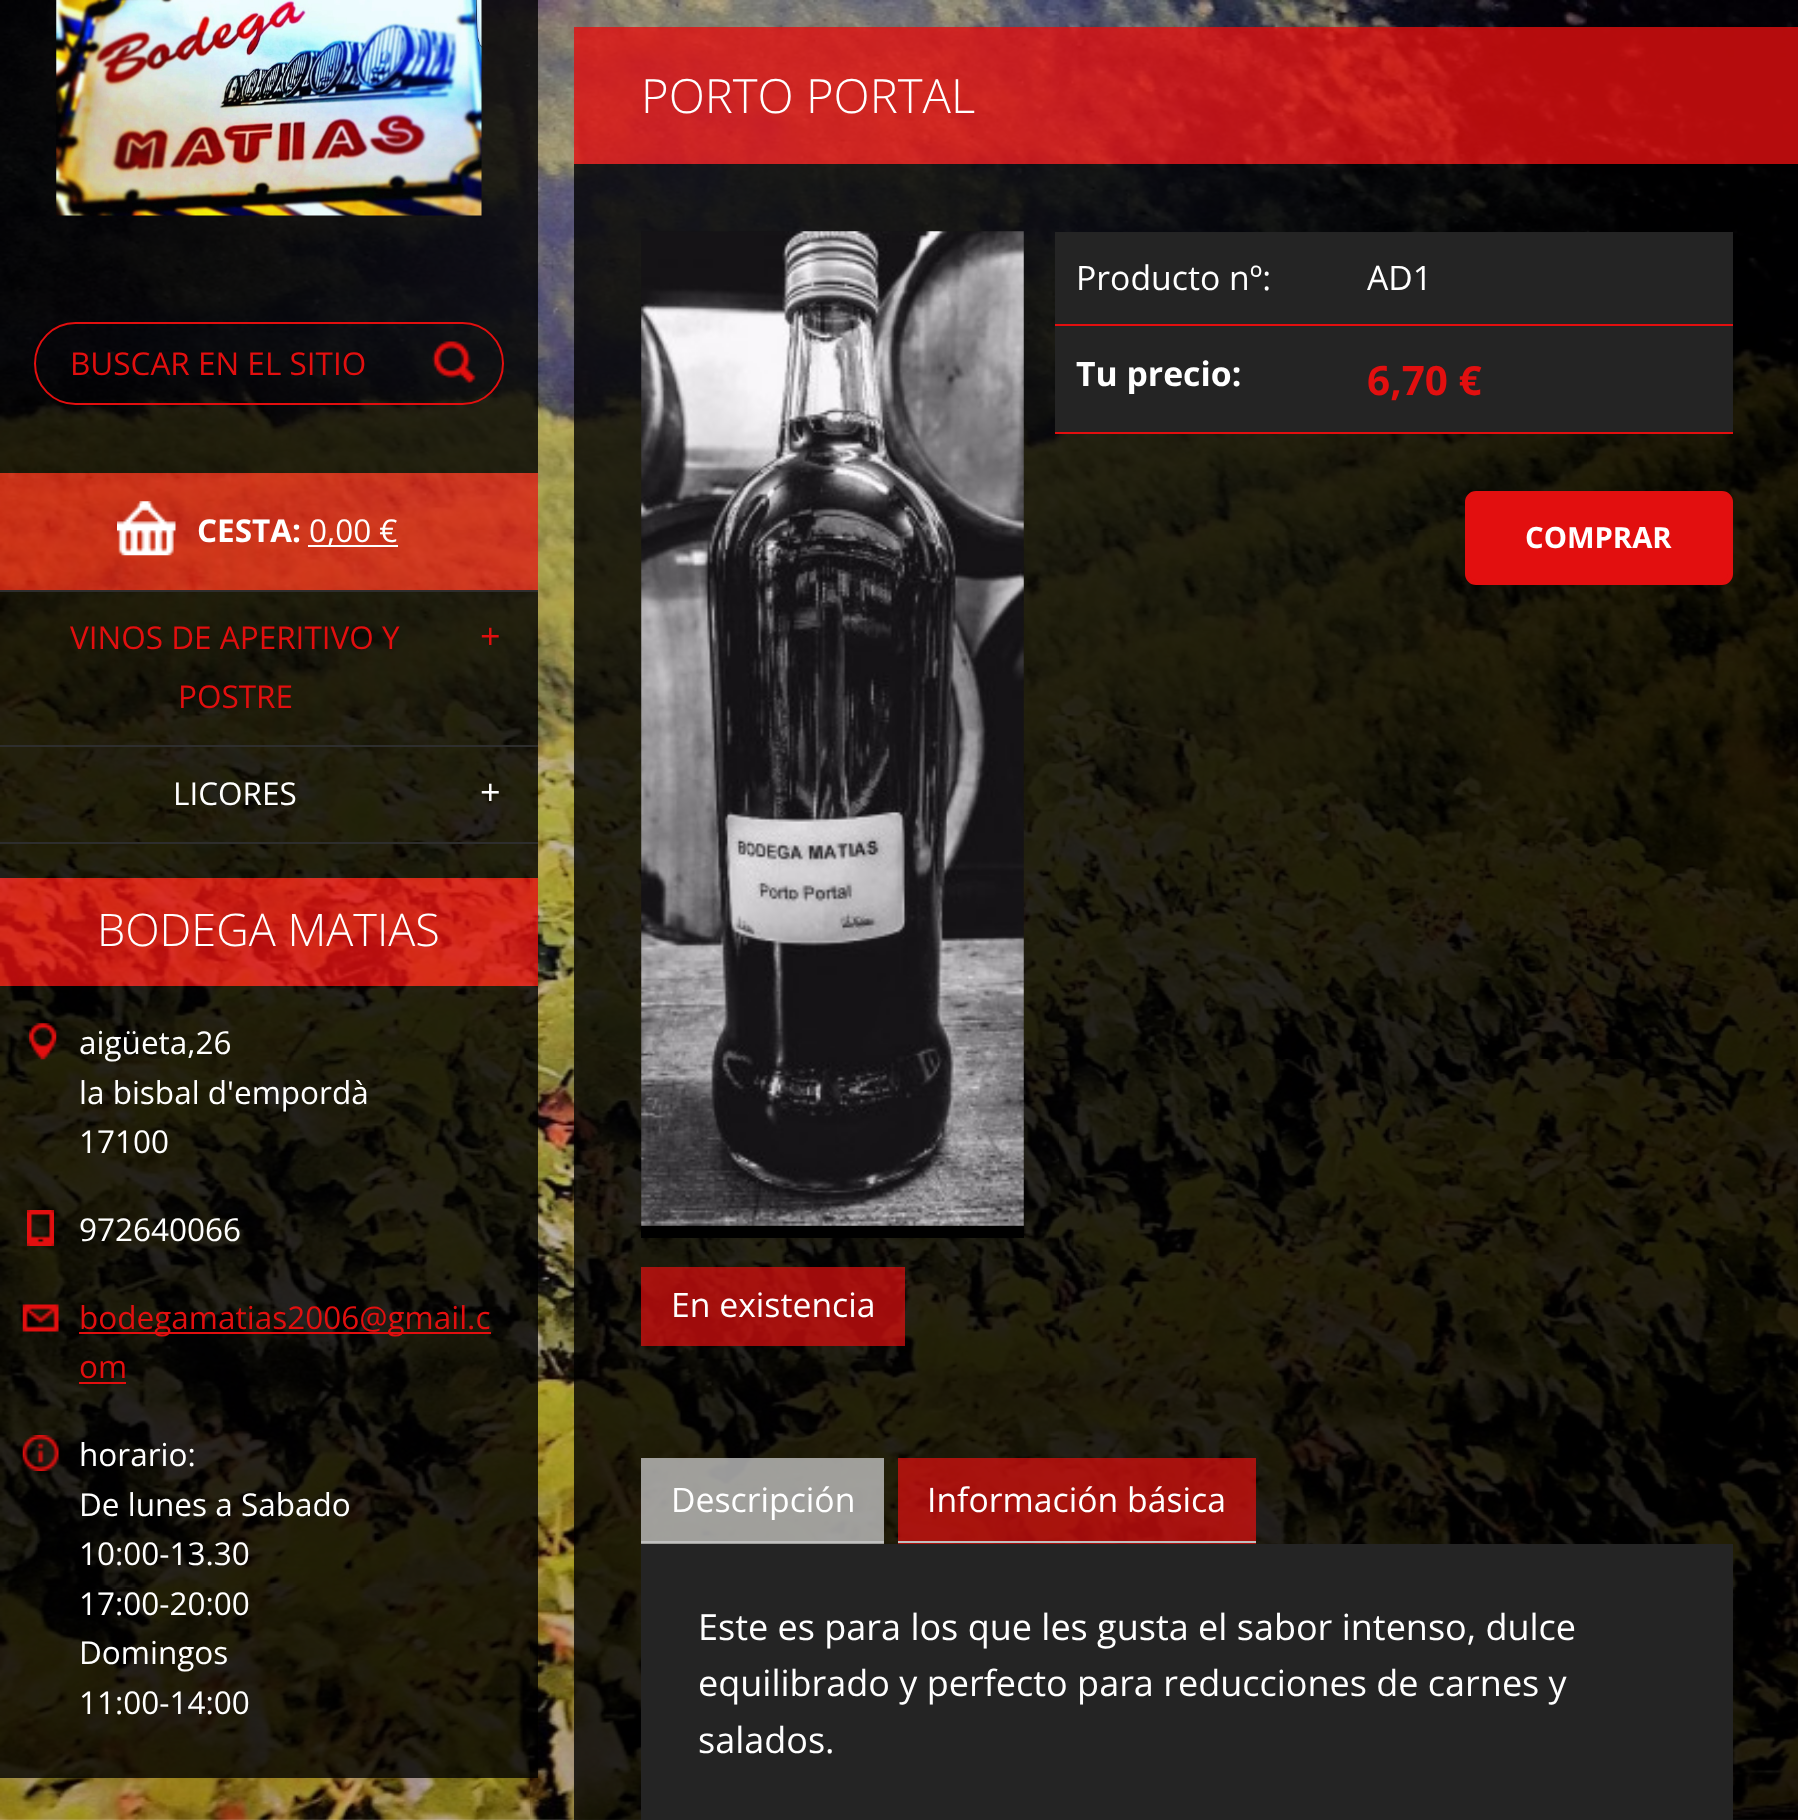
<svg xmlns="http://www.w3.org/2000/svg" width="1798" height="1820">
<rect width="100%" height="100%" fill="#fff"/>
<image x="0" y="0" width="1798" height="1820" href="media/1.png"/>
<rect width="538" height="243" fill="#000000cc"/>
<image x="56" y="0" width="426" height="216" href="media/2.png"/>
<rect y="243" width="538" height="56" fill="#000000cc"/>
<rect y="299" width="538" height="174" fill="#000000cc"/>
<rect x="35" y="323" width="468" height="81" rx="40.5" fill="none" stroke="#e20f0f" stroke-width="2"/>
<text x="70" y="375" style="font-family:Open Sans;font-size:31.5px;fill:#e20f0f">BUSCAR EN EL SITIO</text>
<image x="432" y="341" width="44" height="43" href="media/3.png"/>
<rect y="473" width="538" height="117" fill="#e20f0fb3"/>
<image x="117" y="501" width="59" height="55" href="media/4.png"/>
<text x="197" y="542" style="font-family:Open Sans;font-size:31.5px;font-weight:bold;fill:#fff">CESTA:</text>
<rect x="308" y="545" width="90" height="2" fill="#fff"/>
<text x="309" y="542" style="font-family:Open Sans;font-size:31.5px;fill:#fff">0,00 €</text>
<rect y="592" width="538" height="250" fill="#000000cc"/>
<rect y="590" width="538" height="2" fill="#2e2e2e"/>
<rect y="745" width="538" height="2" fill="#2e2e2e"/>
<text x="70" y="649" style="font-family:Open Sans;font-size:31.5px;fill:#e20f0f">VINOS DE APERITIVO Y</text>
<text x="178" y="708" style="font-family:Open Sans;font-size:31.5px;fill:#e20f0f">POSTRE</text>
<text x="480" y="649" style="font-family:Open Sans;font-size:36px;fill:#e20f0f">+</text>
<rect y="842" width="538" height="2" fill="#2e2e2e"/>
<text x="173" y="805" style="font-family:Open Sans;font-size:31.5px;fill:#fff">LICORES</text>
<text x="480" y="805" style="font-family:Open Sans;font-size:36px;fill:#fff">+</text>
<rect y="844" width="538" height="34" fill="#000000cc"/>
<rect y="878" width="538" height="108" fill="#e20f0fcc"/>
<text x="97" y="946" style="font-family:Open Sans;font-size:45px;font-weight:300;fill:#fff">BODEGA MATIAS</text>
<rect y="986" width="538" height="792" fill="#000000cc"/>
<image x="29" y="1023" width="28" height="37" href="media/5.png"/>
<text x="79" y="1054" style="font-family:Open Sans;font-size:31.5px;fill:#fff">aigüeta,26</text>
<text x="79" y="1104" style="font-family:Open Sans;font-size:31.5px;fill:#fff">la bisbal d'empordà</text>
<text x="79" y="1153" style="font-family:Open Sans;font-size:31.5px;fill:#fff">17100</text>
<image x="27" y="1210" width="27" height="36" href="media/6.png"/>
<text x="79" y="1241" style="font-family:Open Sans;font-size:31.5px;fill:#fff">972640066</text>
<image x="22" y="1304" width="37" height="28" href="media/7.png"/>
<rect x="79" y="1332" width="412" height="2" fill="#e20f0f"/>
<text x="79" y="1329" style="font-family:Open Sans;font-size:31.5px;fill:#e20f0f">bodegamatias2006@gmail.c</text>
<text x="79" y="1378" style="font-family:Open Sans;font-size:31.5px;fill:#e20f0f">om</text>
<rect x="79" y="1382" width="47" height="2" fill="#e20f0f"/>
<image x="22" y="1435" width="37" height="36" href="media/8.png"/>
<text x="79" y="1466" style="font-family:Open Sans;font-size:31.5px;fill:#fff">horario:</text>
<text x="79" y="1516" style="font-family:Open Sans;font-size:31.5px;fill:#fff">De lunes a Sabado</text>
<text x="79" y="1565" style="font-family:Open Sans;font-size:31.5px;fill:#fff">10:00-13.30</text>
<text x="79" y="1615" style="font-family:Open Sans;font-size:31.5px;fill:#fff">17:00-20:00</text>
<text x="79" y="1664" style="font-family:Open Sans;font-size:31.5px;fill:#fff">Domingos</text>
<text x="79" y="1714" style="font-family:Open Sans;font-size:31.5px;fill:#fff">11:00-14:00</text>
<rect x="574" y="27" width="1224" height="137" fill="#e20f0fcc"/>
<text x="641" y="113" style="font-family:Open Sans;font-size:47.25px;font-weight:300;fill:#fff">PORTO PORTAL</text>
<rect x="574" y="164" width="1224" height="1656" fill="#000000cc"/>
<rect x="1055" y="232" width="678" height="92" fill="#242424"/>
<rect x="1055" y="324" width="678" height="2" fill="#e20f0f"/>
<text x="1076" y="290" style="font-family:Open Sans;font-size:33.75px;fill:#fff">Producto nº:</text>
<text x="1367" y="290" style="font-family:Open Sans;font-size:33.75px;fill:#fff">AD1</text>
<rect x="1055" y="326" width="678" height="106" fill="#242424"/>
<rect x="1055" y="432" width="678" height="2" fill="#e20f0f"/>
<text x="1076" y="386" style="font-family:Open Sans;font-size:33.75px;font-weight:bold;fill:#fff">Tu precio:</text>
<text x="1367" y="395" style="font-family:Open Sans;font-size:40.5px;font-weight:bold;fill:#e20f0f">6,70 €</text>
<rect x="1467.5" y="493.5" width="263" height="89" rx="8.5" fill="#e20f0f" stroke="#e20f0f" stroke-width="5"/>
<text x="1525" y="548" style="font-family:Open Sans;font-size:29.25px;font-weight:bold;fill:#fff">COMPRAR</text>
<image x="641" y="231" width="383" height="995" href="media/9.png"/>
<rect x="641" y="1226" width="383" height="12" fill="#000"/>
<rect x="641" y="1267" width="264" height="79" fill="#e20f0fb3"/>
<text x="671" y="1317" style="font-family:Open Sans;font-size:33.75px;fill:#fff">En existencia</text>
<rect x="641" y="1458" width="243" height="86" fill="#c0c0c0cc"/>
<rect x="641" y="1541" width="243" height="2" fill="#c0c0c0"/>
<text x="671" y="1512" style="font-family:Open Sans;font-size:33.75px;fill:#fff">Descripción</text>
<rect x="898" y="1458" width="358" height="86" fill="#e20f0fb3"/>
<rect x="898" y="1541" width="358" height="2" fill="#c0c0c0"/>
<text x="927" y="1512" style="font-family:Open Sans;font-size:33.75px;fill:#fff">Información básica</text>
<rect x="641" y="1544" width="1092" height="276" fill="#242424"/>
<text x="698" y="1640" style="font-family:Open Sans;font-size:36px;fill:#fff">Este es para los que les gusta el sabor intenso, dulce</text>
<text x="698" y="1696" style="font-family:Open Sans;font-size:36px;fill:#fff">equilibrado y perfecto para reducciones de carnes y</text>
<text x="698" y="1753" style="font-family:Open Sans;font-size:36px;fill:#fff">salados.</text>
</svg>
